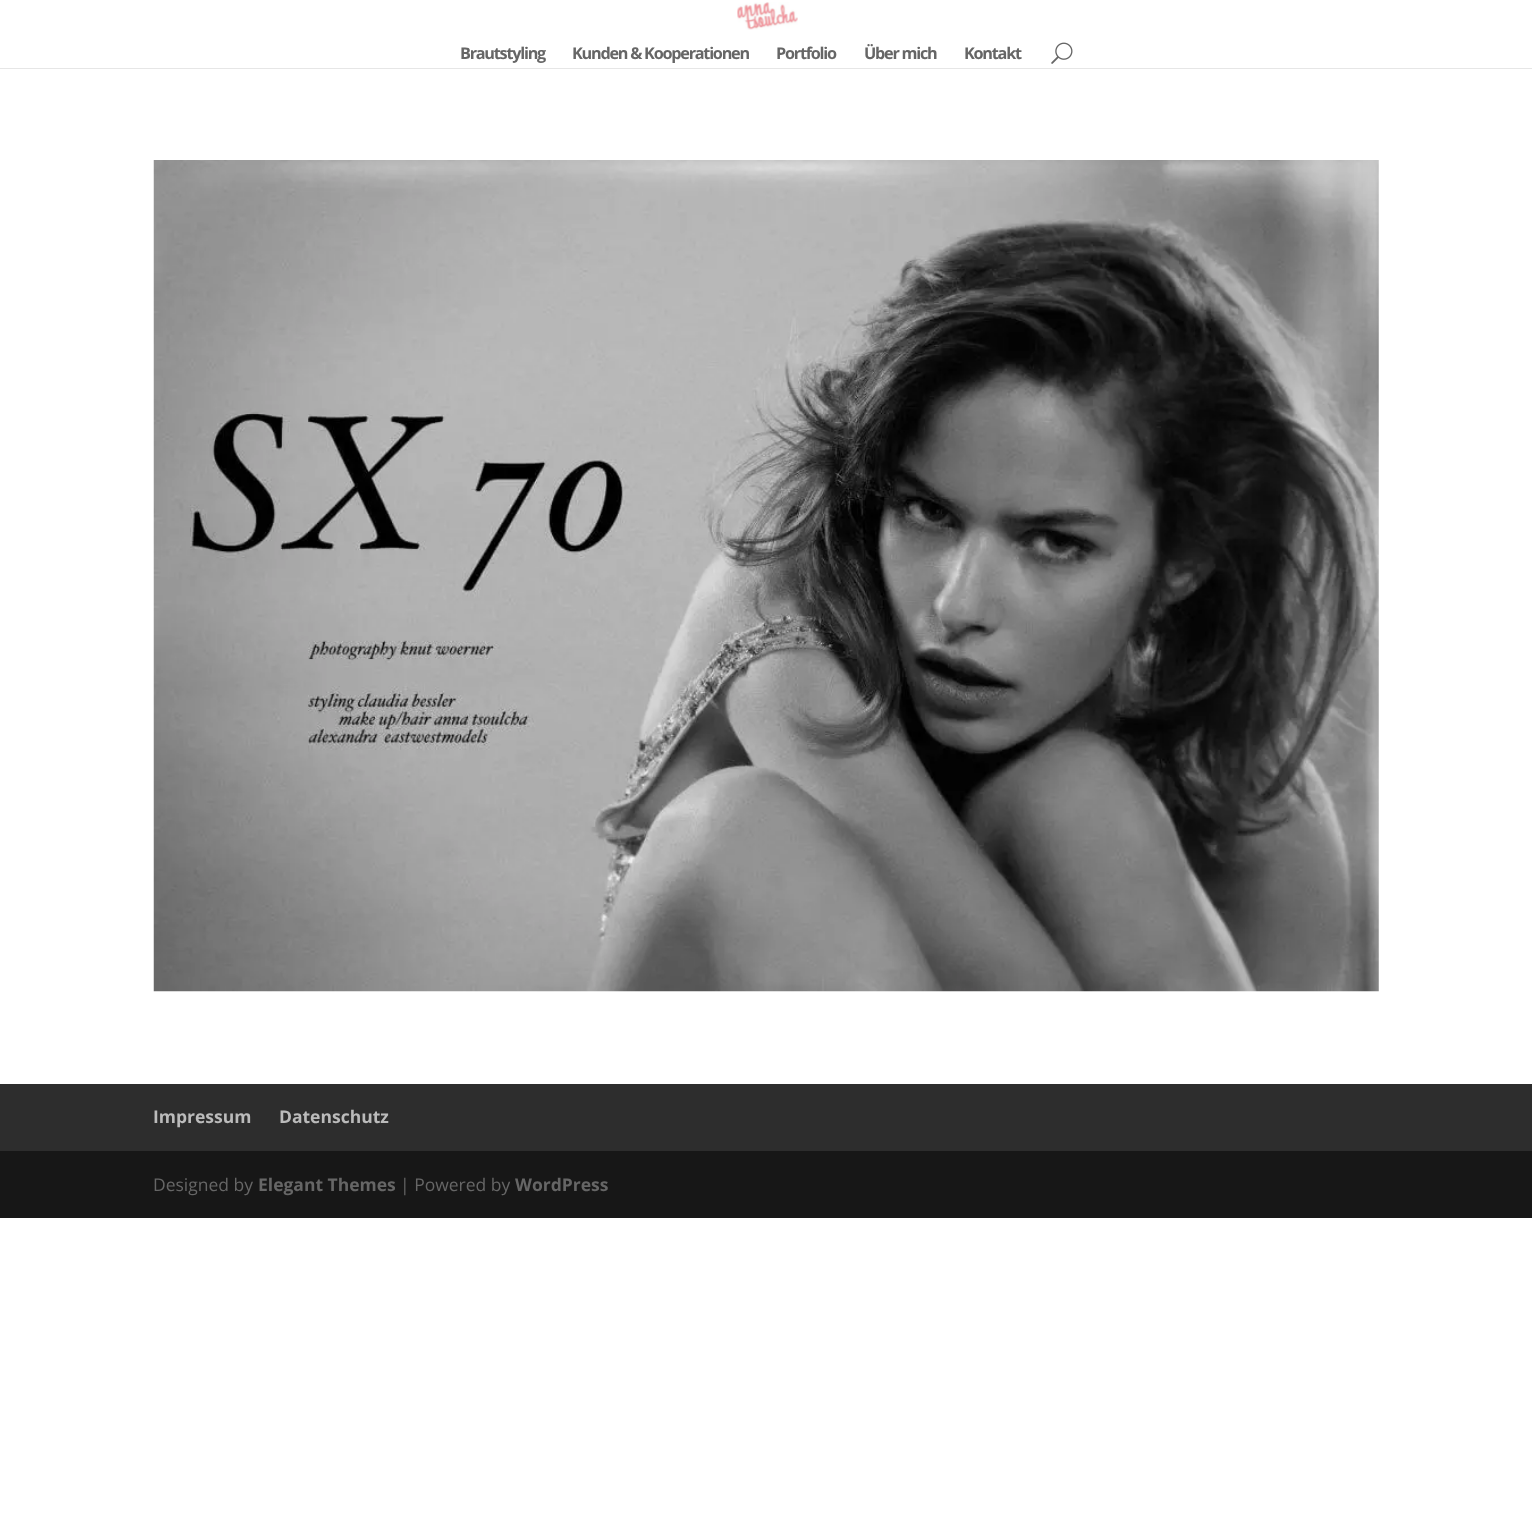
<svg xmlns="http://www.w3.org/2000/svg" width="1532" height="1513">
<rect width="100%" height="100%" fill="#fff"/>
<path d="M0 68v1h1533v-68h-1v67z" fill="#e6e6e6"/>
<image x="737" y="2" width="61" height="28" href="media/1.png"/>
<text x="460" y="59" style="font-family:Open Sans;font-size:16.25px;font-weight:bold;letter-spacing:-1.25px;fill:#666">Brautstyling</text>
<text x="572" y="59" style="font-family:Open Sans;font-size:16.25px;font-weight:bold;letter-spacing:-1.25px;fill:#666">Kunden &amp; Kooperationen</text>
<text x="776" y="59" style="font-family:Open Sans;font-size:16.25px;font-weight:bold;letter-spacing:-1.25px;fill:#666">Portfolio</text>
<text x="864" y="59" style="font-family:Open Sans;font-size:16.25px;font-weight:bold;letter-spacing:-1.25px;fill:#666">Über mich</text>
<text x="964" y="59" style="font-family:Open Sans;font-size:16.25px;font-weight:bold;letter-spacing:-1.25px;fill:#666">Kontakt</text>
<image x="1051" y="42" width="22" height="22" href="media/2.png"/>
<image x="153" y="160" width="1226" height="832" href="media/3.png"/>
<rect y="1084" width="1532" height="67" fill="#2d2d2d"/>
<text x="153" y="1123" style="font-family:Open Sans;font-size:17.5px;font-weight:bold;fill:#bbb">Impressum</text>
<text x="279" y="1123" style="font-family:Open Sans;font-size:17.5px;font-weight:bold;fill:#bbb">Datenschutz</text>
<rect y="1151" width="1532" height="67" fill="#171717"/>
<text x="153" y="1191" style="font-family:Open Sans;font-size:17.5px;fill:#666">Designed by</text>
<text x="258" y="1191" style="font-family:Open Sans;font-size:17.5px;font-weight:bold;fill:#666">Elegant Themes</text>
<text x="400" y="1191" style="font-family:Open Sans;font-size:17.5px;fill:#666">| Powered by</text>
<text x="515" y="1191" style="font-family:Open Sans;font-size:17.5px;font-weight:bold;fill:#666">WordPress</text>
</svg>
